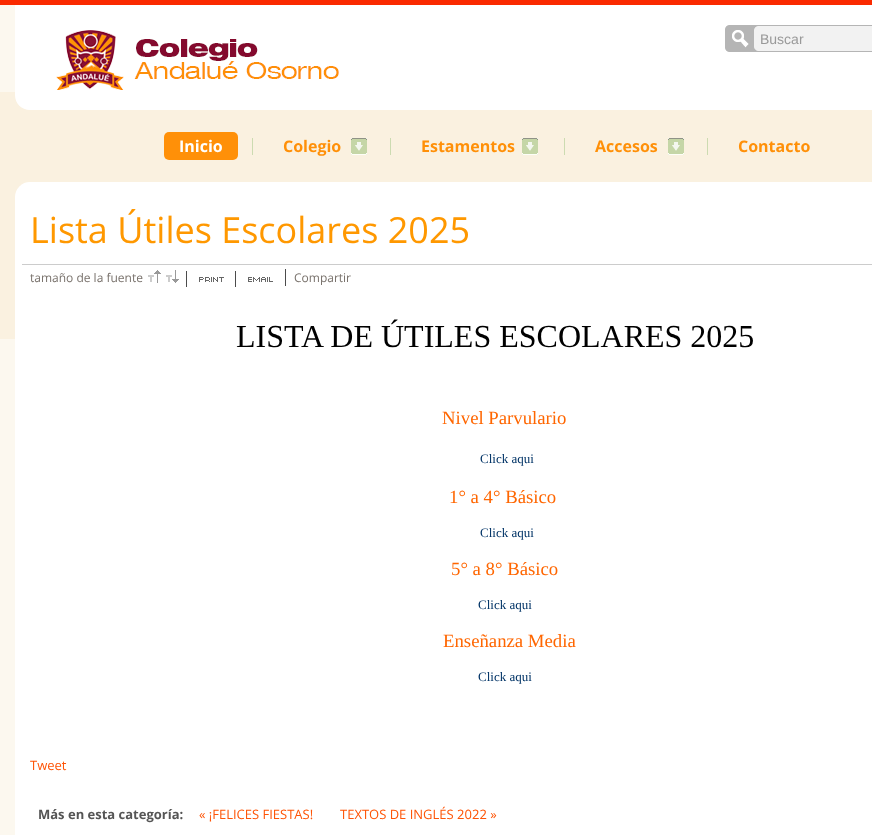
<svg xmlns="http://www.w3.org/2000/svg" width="872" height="835">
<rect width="100%" height="100%" fill="#fcf8ef"/>
<image x="0" y="0" width="872" height="339" href="media/1.png"/>
<path d="M15 5h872v90c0 8.5-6.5 15-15 15h-842c-8.5 0-15-6.5-15-15z" fill="#fff"/>
<image x="56" y="30" width="283" height="60" href="media/2.png"/>
<image x="725" y="25" width="147" height="27" href="media/3.png"/>
<text x="760" y="44" style="font-family:Liberation Sans;font-size:14px;fill:#999">Buscar</text>
<rect x="252" y="138" width="1" height="17" fill="#ccdbb1"/>
<rect x="164" y="132" width="74" height="28" rx="5" fill="#ff9008"/>
<text x="179" y="152" style="font-family:Open Sans;font-size:16px;font-weight:bold;fill:#fff">Inicio</text>
<rect x="390" y="138" width="1" height="17" fill="#ccdbb1"/>
<image x="351" y="138" width="16" height="17" href="media/4.png"/>
<text x="283" y="152" style="font-family:Open Sans;font-size:16px;font-weight:bold;fill:#ff9008">Colegio</text>
<rect x="564" y="138" width="1" height="17" fill="#ccdbb1"/>
<image x="522" y="138" width="16" height="17" href="media/4.png"/>
<text x="421" y="152" style="font-family:Open Sans;font-size:16px;font-weight:bold;fill:#ff9008">Estamentos</text>
<rect x="707" y="138" width="1" height="17" fill="#ccdbb1"/>
<image x="668" y="138" width="16" height="17" href="media/4.png"/>
<text x="595" y="152" style="font-family:Open Sans;font-size:16px;font-weight:bold;fill:#ff9008">Accesos</text>
<text x="738" y="152" style="font-family:Open Sans;font-size:16px;font-weight:bold;fill:#ff9008">Contacto</text>
<rect x="15" y="182" width="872" height="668" rx="15" fill="#fff"/>
<text x="30" y="243" style="font-family:Open Sans;font-size:36px;fill:#ff9800">Lista Útiles Escolares 2025</text>
<rect x="22" y="264" width="850" height="1" fill="#ccc"/>
<text x="30" y="282" style="font-family:Open Sans;font-size:12px;fill:#78716b">tamaño de la fuente</text>
<image x="148" y="270" width="13" height="13" href="media/5.png"/>
<image x="166" y="270" width="13" height="13" href="media/6.png"/>
<rect x="186" y="271" width="1" height="16" fill="#4c4c4c"/>
<image x="199" y="277" width="25" height="5" href="media/7.png"/>
<rect x="235" y="271" width="1" height="16" fill="#4c4c4c"/>
<image x="248" y="277" width="25" height="5" href="media/8.png"/>
<text x="294" y="282" style="font-family:Open Sans;font-size:12px;fill:#78716b">Compartir</text>
<rect x="285" y="269" width="1" height="17" fill="#4c4c4c"/>
<text x="236" y="347" style="font-family:Liberation Serif;font-size:32px;fill:#000">LISTA DE ÚTILES ESCOLARES 2025</text>
<text x="442" y="424" style="font-family:Liberation Serif;font-size:18.75px;fill:#f60">Nivel Parvulario</text>
<text x="480" y="463" style="font-family:Liberation Serif;font-size:13px;fill:#036">Click aqui</text>
<text x="449" y="503" style="font-family:Liberation Serif;font-size:18.75px;fill:#f60">1° a 4° Básico</text>
<text x="480" y="537" style="font-family:Liberation Serif;font-size:13px;fill:#036">Click aqui</text>
<text x="451" y="575" style="font-family:Liberation Serif;font-size:18.75px;fill:#f60">5° a 8° Básico</text>
<text x="478" y="609" style="font-family:Liberation Serif;font-size:13px;fill:#036">Click aqui</text>
<text x="443" y="647" style="font-family:Liberation Serif;font-size:18.75px;fill:#f60">Enseñanza Media</text>
<text x="478" y="681" style="font-family:Liberation Serif;font-size:13px;fill:#036">Click aqui</text>
<text x="30" y="770" style="font-family:Open Sans;font-size:13px;fill:#fe5406">Tweet</text>
<text x="38" y="819" style="font-family:Open Sans;font-size:13px;font-weight:bold;fill:#555">Más en esta categoría:</text>
<text x="199" y="819" style="font-family:Open Sans;font-size:13px;fill:#fe5406">« ¡FELICES FIESTAS!</text>
<text x="340" y="819" style="font-family:Open Sans;font-size:13px;fill:#fe5406">TEXTOS DE INGLÉS 2022 »</text>
</svg>
